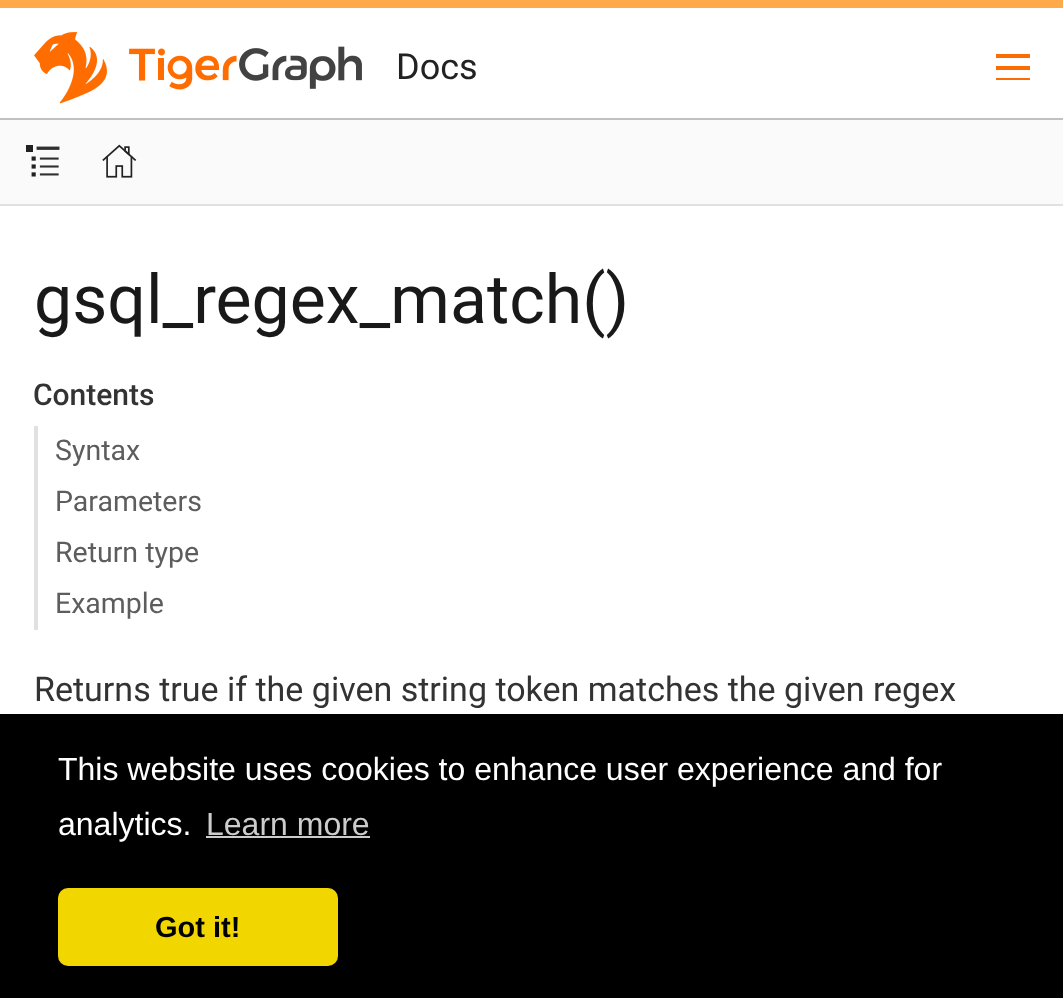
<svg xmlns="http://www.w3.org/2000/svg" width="1063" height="998">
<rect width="100%" height="100%" fill="#fff"/>
<rect width="1063" height="8" fill="#ffa94b"/>
<rect y="118" width="1063" height="2" fill="#c1c1c1"/>
<image x="34" y="32" width="328" height="72" href="media/1.png"/>
<text x="396" y="79" style="font-family:Roboto;font-size:36px;fill:#222">Docs</text>
<rect x="996" y="54" width="34" height="4" fill="#fc6c04"/>
<rect x="996" y="66" width="34" height="4" fill="#fc6c04"/>
<rect x="996" y="78" width="34" height="2" fill="#fc6c04"/>
<rect y="204" width="1063" height="2" fill="#e1e1e1"/>
<rect y="120" width="1063" height="84" fill="#fafafa"/>
<image x="26" y="145" width="34" height="32" href="media/2.png"/>
<image x="102" y="144" width="35" height="34" href="media/3.png"/>
<text x="34" y="323" style="font-family:Roboto;font-size:68px;fill:#191919">gsql_regex_match()</text>
<text x="33" y="405" style="font-family:Roboto;font-size:30px;font-weight:500;fill:#333">Contents</text>
<rect x="34" y="426" width="4" height="204" fill="#e1e1e1"/>
<text x="55" y="460" style="font-family:Roboto;font-size:28.5px;fill:#5d5d5d">Syntax</text>
<text x="55" y="511" style="font-family:Roboto;font-size:28.5px;fill:#5d5d5d">Parameters</text>
<text x="55" y="562" style="font-family:Roboto;font-size:28.5px;fill:#5d5d5d">Return type</text>
<text x="55" y="613" style="font-family:Roboto;font-size:28.5px;fill:#5d5d5d">Example</text>
<text x="34" y="701" style="font-family:Roboto;font-size:34px;fill:#333">Returns true if the given string token matches the given regex</text>
<rect y="714" width="1063" height="284" fill="#000"/>
<text x="58" y="780" style="font-family:Liberation Sans;font-size:32px;fill:#fff">This website uses cookies to enhance user experience and for</text>
<text x="58" y="835" style="font-family:Liberation Sans;font-size:32px;fill:#fff">analytics.</text>
<text x="206" y="835" style="font-family:Liberation Sans;font-size:32px;fill:#ccc">Learn more</text>
<rect x="206" y="836" width="164" height="2" fill="#ccc"/>
<rect x="58" y="888" width="280" height="78" rx="10" fill="#f1d600"/>
<text x="155" y="937" style="font-family:Liberation Sans;font-size:29px;font-weight:bold;fill:#000">Got it!</text>
</svg>
